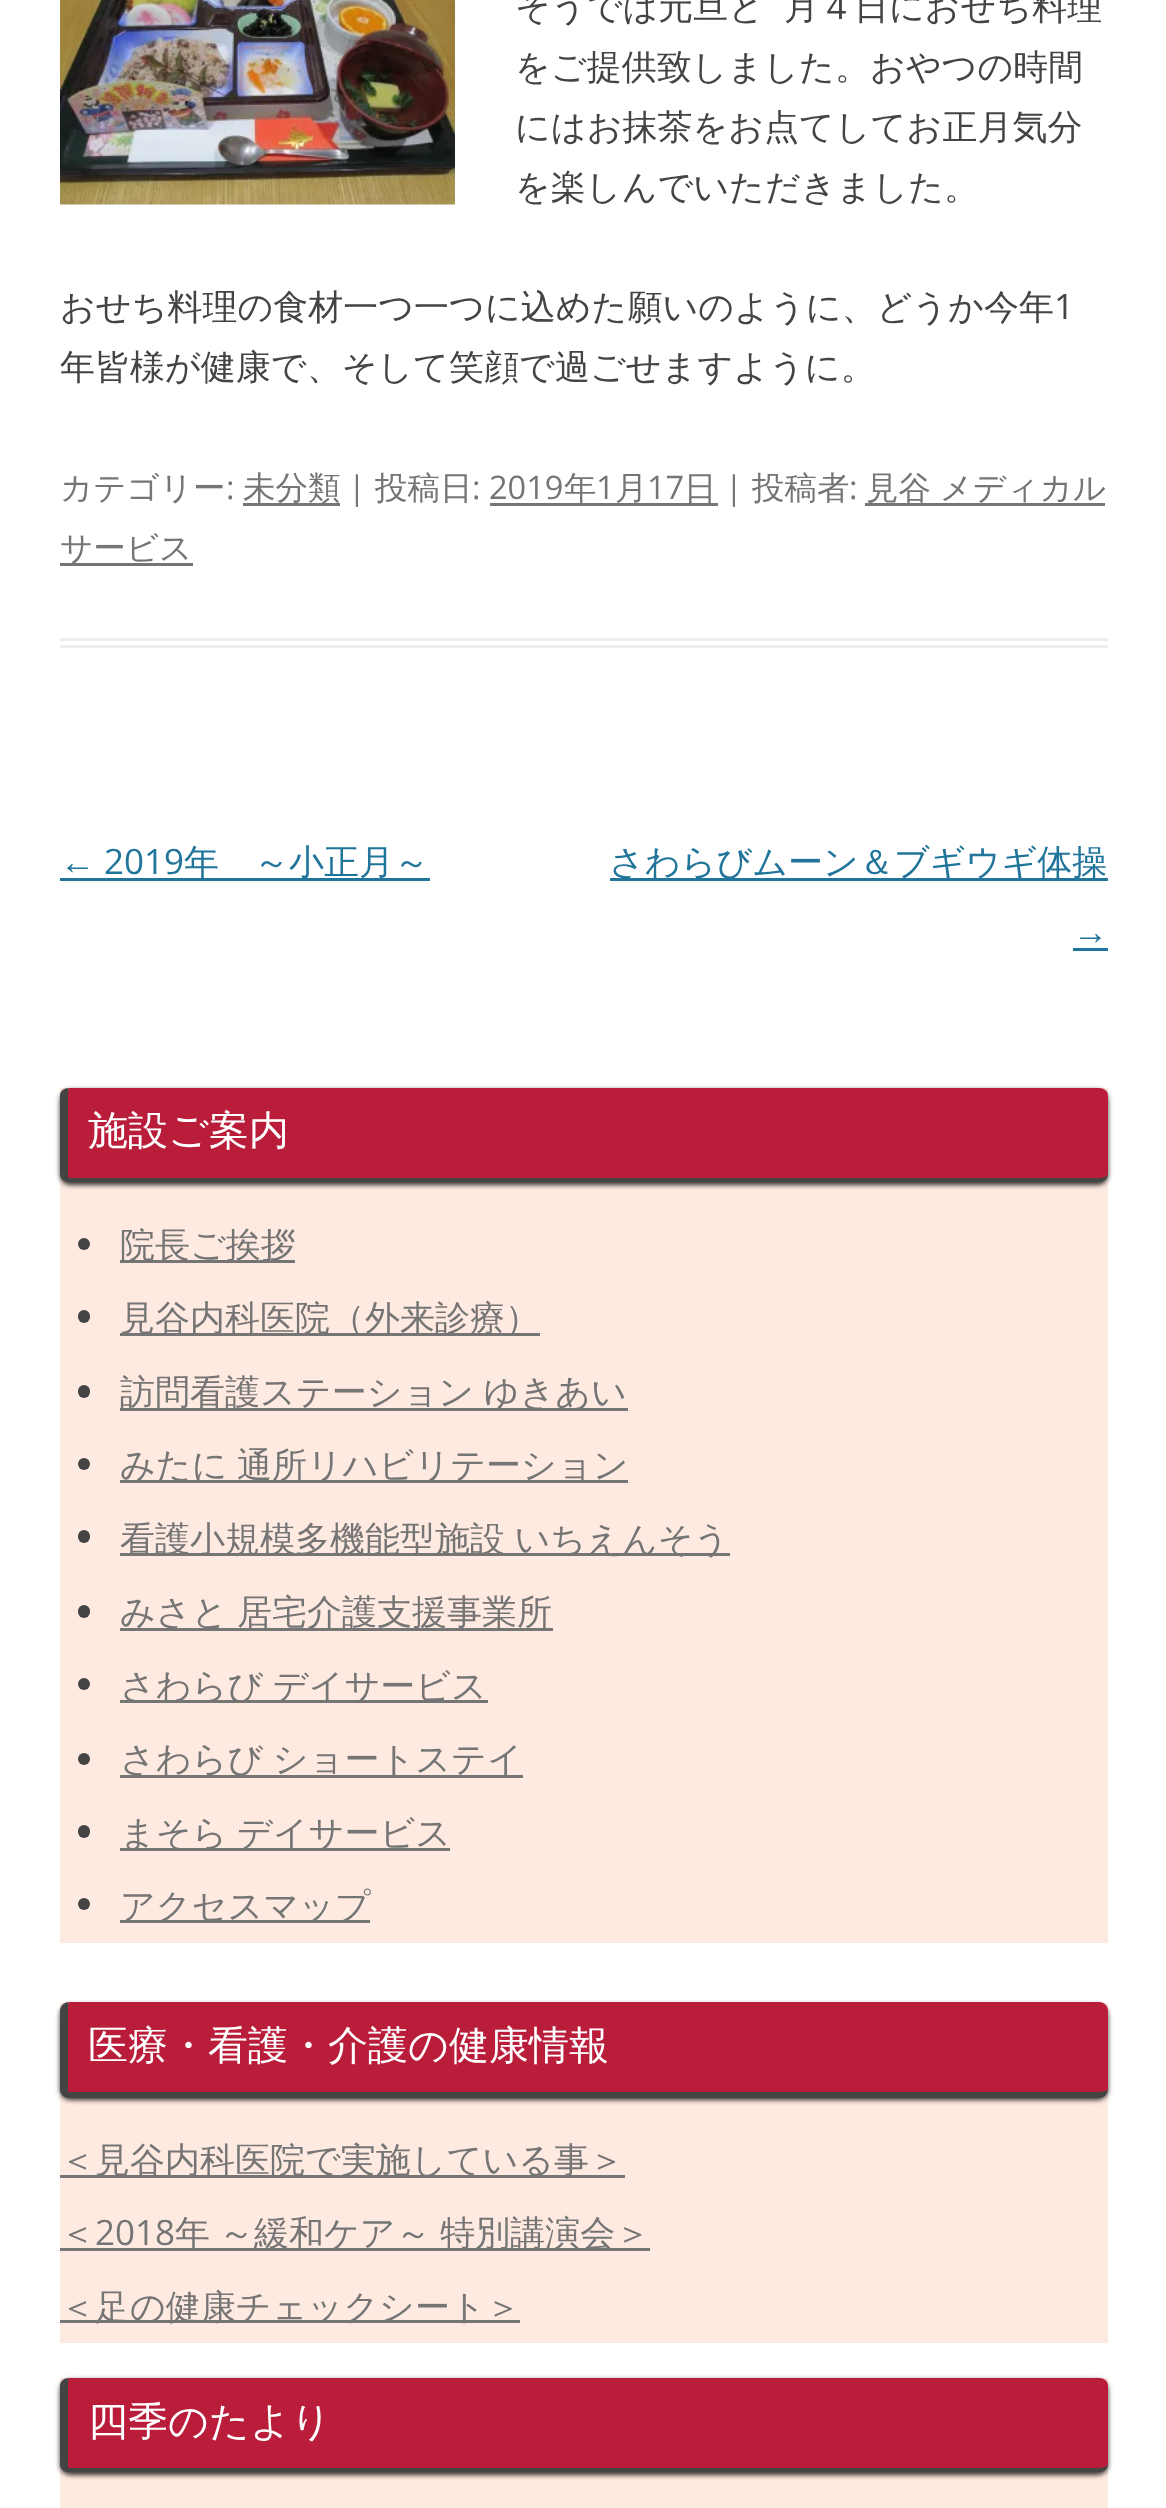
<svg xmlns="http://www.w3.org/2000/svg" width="1166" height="2508">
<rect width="100%" height="100%" fill="#fff"/>
<rect x="60" y="638" width="1048" height="3" fill="#ededed"/>
<rect x="60" y="645" width="1048" height="3" fill="#ededed"/>
<image x="60" y="0" width="395" height="205" href="media/1.png"/>
<text x="515" y="19" style="font-family:WenQuanYi Zen Hei;font-size:35px;font-weight:500;fill:#444">そうでは元旦と</text>
<text x="784" y="19" style="font-family:WenQuanYi Zen Hei;font-size:35px;font-weight:500;fill:#444">月４日におせち料理</text>
<text x="515" y="79" style="font-family:WenQuanYi Zen Hei;font-size:35px;font-weight:500;fill:#444">をご提供致しました。おやつの時間</text>
<text x="515" y="139" style="font-family:WenQuanYi Zen Hei;font-size:35px;font-weight:500;fill:#444">にはお抹茶をお点てしてお正月気分</text>
<text x="515" y="199" style="font-family:WenQuanYi Zen Hei;font-size:35px;font-weight:500;fill:#444">を楽しんでいただきました。</text>
<text x="60" y="319" style="font-family:WenQuanYi Zen Hei;font-size:35px;font-weight:500;fill:#444">おせち料理の食材一つ一つに込めた願いのように、どうか今年</text>
<text x="1054" y="319" style="font-family:Open Sans;font-size:35px;fill:#444">1</text>
<text x="60" y="379" style="font-family:WenQuanYi Zen Hei;font-size:35px;font-weight:500;fill:#444">年皆様が健康で、そして笑顔で過ごせますように。</text>
<text x="60" y="499" style="font-family:WenQuanYi Zen Hei;font-size:32.5px;font-weight:500;fill:#757575">カテゴリー</text>
<text x="226" y="499" style="font-family:Open Sans;font-size:32.5px;fill:#757575">:</text>
<rect x="243" y="503" width="97" height="3" fill="#757575"/>
<text x="243" y="499" style="font-family:WenQuanYi Zen Hei;font-size:32.5px;font-weight:500;fill:#757575">未分類</text>
<text x="348" y="499" style="font-family:Open Sans;font-size:32.5px;fill:#757575">|</text>
<text x="375" y="499" style="font-family:WenQuanYi Zen Hei;font-size:32.5px;font-weight:500;fill:#757575">投稿日</text>
<text x="472" y="499" style="font-family:Open Sans;font-size:32.5px;fill:#757575">: 2019</text>
<text x="564" y="499" style="font-family:WenQuanYi Zen Hei;font-size:32.5px;font-weight:500;fill:#757575">年</text>
<text x="596" y="499" style="font-family:Open Sans;font-size:32.5px;fill:#757575">1</text>
<rect x="490" y="503" width="228" height="3" fill="#757575"/>
<text x="615" y="499" style="font-family:WenQuanYi Zen Hei;font-size:32.5px;font-weight:500;fill:#757575">月</text>
<text x="647" y="499" style="font-family:Open Sans;font-size:32.5px;fill:#757575">17</text>
<text x="684" y="499" style="font-family:WenQuanYi Zen Hei;font-size:32.5px;font-weight:500;fill:#757575">日</text>
<text x="725" y="499" style="font-family:Open Sans;font-size:32.5px;fill:#757575">|</text>
<text x="752" y="499" style="font-family:WenQuanYi Zen Hei;font-size:32.5px;font-weight:500;fill:#757575">投稿者</text>
<text x="849" y="499" style="font-family:Open Sans;font-size:32.5px;fill:#757575">:</text>
<rect x="865" y="503" width="240" height="3" fill="#757575"/>
<text x="866" y="499" word-spacing="-1" style="font-family:WenQuanYi Zen Hei;font-size:32.5px;font-weight:500;fill:#757575">見谷 メディカル</text>
<rect x="60" y="563" width="133" height="3" fill="#757575"/>
<text x="60" y="559" style="font-family:WenQuanYi Zen Hei;font-size:32.5px;font-weight:500;fill:#757575">サービス</text>
<text x="60" y="874" style="font-family:Liberation Sans;font-size:35px;fill:#21759b">←</text>
<rect x="60" y="878" width="370" height="3" fill="#21759b"/>
<text x="104" y="874" style="font-family:Open Sans;font-size:35px;fill:#21759b">2019</text>
<text x="184" y="874" style="font-family:WenQuanYi Zen Hei;font-size:35px;font-weight:500;fill:#21759b">年　～小正月～</text>
<rect x="610" y="878" width="498" height="3" fill="#21759b"/>
<text x="609" y="874" style="font-family:WenQuanYi Zen Hei;font-size:35px;font-weight:500;fill:#21759b">さわらびムーン＆ブギウギ体操</text>
<text x="1073" y="944" style="font-family:Liberation Sans;font-size:35px;fill:#21759b">→</text>
<rect x="1073" y="948" width="35" height="3" fill="#21759b"/>
<rect x="60" y="1088" width="1048" height="855" fill="#ffeae1"/>
<rect x="60" y="1090" width="1048" height="95" rx="10" fill="#000000cc" filter="blur(2.5px)"/>
<path d="M69 1088h1030c5 0 9 3 9 8v78c0 2-4 4-9 4h-1030c-1 0-1-2-1-4v-78c0-5 0-8 1-8z" fill="#b91d3a"/>
<path d="M69 1088h1030c5 0 9 3 9 8v78c0 5-4 8-9 8h-1030c-5 0-9-3-9-8v-78c0-5 4-8 9-8zm0 0h1030c5 0 9 3 9 8v78c0 2-4 4-9 4h-1030c-1 0-1-2-1-4v-78c0-5 0-8 1-8z" fill="#444" fill-rule="evenodd"/>
<text x="88" y="1144" style="font-family:WenQuanYi Zen Hei;font-size:40px;font-weight:500;fill:#fff">施設ご案内</text>
<circle cx="84" cy="1244" r="6" fill="#444"/>
<rect x="120" y="1260" width="175" height="3" fill="#757575"/>
<text x="120" y="1257" style="font-family:WenQuanYi Zen Hei;font-size:35px;font-weight:500;fill:#757575">院長ご挨拶</text>
<rect x="78" y="1310" width="12" height="13" rx="6" fill="#444"/>
<rect x="120" y="1333" width="420" height="3" fill="#757575"/>
<text x="120" y="1330" style="font-family:WenQuanYi Zen Hei;font-size:35px;font-weight:500;fill:#757575">見谷内科医院（外来診療）</text>
<rect x="78" y="1385" width="12" height="13" rx="6" fill="#444"/>
<rect x="120" y="1408" width="508" height="3" fill="#757575"/>
<text x="120" y="1404" word-spacing="-1" style="font-family:WenQuanYi Zen Hei;font-size:35px;font-weight:500;fill:#757575">訪問看護ステーション ゆきあい</text>
<circle cx="84" cy="1464" r="6" fill="#444"/>
<rect x="120" y="1480" width="508" height="3" fill="#757575"/>
<text x="120" y="1477" word-spacing="-1" style="font-family:WenQuanYi Zen Hei;font-size:35px;font-weight:500;fill:#757575">みたに 通所リハビリテーション</text>
<rect x="78" y="1530" width="12" height="13" rx="6" fill="#444"/>
<rect x="120" y="1553" width="610" height="3" fill="#757575"/>
<text x="120" y="1551" word-spacing="-1" style="font-family:WenQuanYi Zen Hei;font-size:35px;font-weight:500;fill:#757575">看護小規模多機能型施設 いちえんそう</text>
<rect x="78" y="1605" width="12" height="13" rx="6" fill="#444"/>
<rect x="120" y="1628" width="433" height="3" fill="#757575"/>
<text x="120" y="1624" word-spacing="-1" style="font-family:WenQuanYi Zen Hei;font-size:35px;font-weight:500;fill:#757575">みさと 居宅介護支援事業所</text>
<circle cx="84" cy="1684" r="6" fill="#444"/>
<rect x="120" y="1700" width="368" height="3" fill="#757575"/>
<text x="120" y="1698" word-spacing="-1" style="font-family:WenQuanYi Zen Hei;font-size:35px;font-weight:500;fill:#757575">さわらび デイサービス</text>
<circle cx="84" cy="1759" r="6" fill="#444"/>
<rect x="120" y="1775" width="403" height="3" fill="#757575"/>
<text x="120" y="1771" word-spacing="-1" style="font-family:WenQuanYi Zen Hei;font-size:35px;font-weight:500;fill:#757575">さわらび ショートステイ</text>
<rect x="78" y="1825" width="12" height="13" rx="6" fill="#444"/>
<rect x="120" y="1848" width="330" height="3" fill="#757575"/>
<text x="120" y="1845" word-spacing="-1" style="font-family:WenQuanYi Zen Hei;font-size:35px;font-weight:500;fill:#757575">まそら デイサービス</text>
<circle cx="84" cy="1904" r="6" fill="#444"/>
<rect x="120" y="1920" width="250" height="3" fill="#757575"/>
<text x="120" y="1918" style="font-family:WenQuanYi Zen Hei;font-size:35px;font-weight:500;fill:#757575">アクセスマップ</text>
<rect x="60" y="2003" width="1048" height="340" fill="#ffeae1"/>
<rect x="60" y="2005" width="1048" height="95" rx="10" fill="#000000cc" filter="blur(2.5px)"/>
<path d="M69 2002h1030c5 0 9 4 9 9v78c0 2-4 3-9 3h-1030c-1 0-1-1-1-3v-78c0-5 0-9 1-9z" fill="#b91d3a"/>
<path d="M69 2002h1030c5 0 9 4 9 9v78c0 5-4 9-9 9h-1030c-5 0-9-4-9-9v-78c0-5 4-9 9-9zm0 0h1030c5 0 9 4 9 9v78c0 2-4 3-9 3h-1030c-1 0-1-1-1-3v-78c0-5 0-9 1-9z" fill="#444" fill-rule="evenodd"/>
<text x="88" y="2059" style="font-family:WenQuanYi Zen Hei;font-size:40px;font-weight:500;fill:#fff">医療・看護・介護の健康情報</text>
<rect x="60" y="2175" width="565" height="3" fill="#757575"/>
<text x="60" y="2172" style="font-family:WenQuanYi Zen Hei;font-size:35px;font-weight:500;fill:#757575">＜見谷内科医院で実施している事＞</text>
<text x="60" y="2245" style="font-family:WenQuanYi Zen Hei;font-size:35px;font-weight:500;fill:#757575">＜</text>
<rect x="60" y="2248" width="590" height="3" fill="#757575"/>
<text x="95" y="2245" style="font-family:Open Sans;font-size:35px;fill:#757575">2018</text>
<text x="175" y="2245" style="font-family:WenQuanYi Zen Hei;font-size:35px;font-weight:500;fill:#757575">年</text>
<text x="219" y="2245" word-spacing="-1" style="font-family:WenQuanYi Zen Hei;font-size:35px;font-weight:500;fill:#757575">～緩和ケア～ 特別講演会＞</text>
<rect x="60" y="2320" width="460" height="3" fill="#757575"/>
<text x="60" y="2319" style="font-family:WenQuanYi Zen Hei;font-size:35px;font-weight:500;fill:#757575">＜足の健康チェックシート＞</text>
<rect x="60" y="2378" width="1048" height="130" fill="#ffeae1"/>
<rect x="60" y="2380" width="1048" height="95" rx="10" fill="#000000cc" filter="blur(2.5px)"/>
<path d="M69 2378h1030c5 0 9 3 9 8v78c0 2-4 4-9 4h-1030c-1 0-1-2-1-4v-78c0-5 0-8 1-8z" fill="#b91d3a"/>
<path d="M69 2378h1030c5 0 9 3 9 8v78c0 5-4 8-9 8h-1030c-5 0-9-3-9-8v-78c0-5 4-8 9-8zm0 0h1030c5 0 9 3 9 8v78c0 2-4 4-9 4h-1030c-1 0-1-2-1-4v-78c0-5 0-8 1-8z" fill="#444" fill-rule="evenodd"/>
<text x="88" y="2435" style="font-family:WenQuanYi Zen Hei;font-size:40px;font-weight:500;fill:#fff">四季のたより</text>
</svg>
